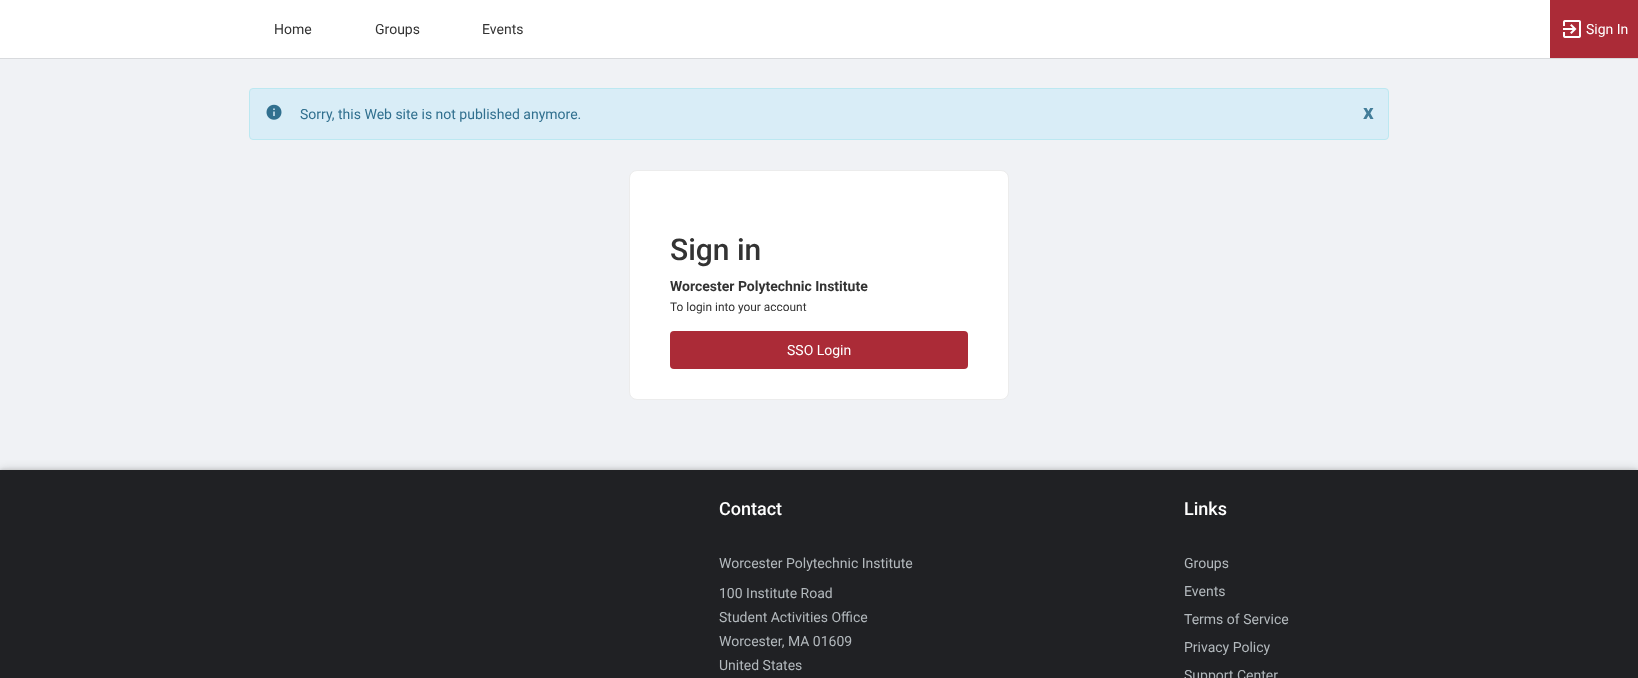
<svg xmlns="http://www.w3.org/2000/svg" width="1638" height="678">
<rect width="100%" height="100%" fill="#f0f2f5"/>
<rect width="1550" height="58" fill="#fff"/>
<rect y="58" width="1638" height="1" fill="#d8dadd"/>
<text x="274" y="34" style="font-family:Roboto;font-size:14px;fill:#333">Home</text>
<text x="375" y="34" style="font-family:Roboto;font-size:14px;fill:#333">Groups</text>
<text x="482" y="34" style="font-family:Roboto;font-size:14px;fill:#333">Events</text>
<rect x="1550" width="88" height="58" fill="#ab2b37"/>
<image x="1563" y="20" width="18" height="18" href="media/1.png"/>
<text x="1586" y="34" style="font-family:Roboto;font-size:14px;fill:#fff">Sign In</text>
<rect x="249.5" y="88.5" width="1139" height="51" rx="3.5" fill="#d9edf7" stroke="#bce8f1"/>
<image x="266" y="104" width="16" height="16" href="media/2.png"/>
<text x="300" y="119" style="font-family:Roboto;font-size:14px;fill:#31708f">Sorry, this Web site is not published anymore.</text>
<text x="1363" y="119" style="font-family:Roboto;font-size:21px;font-weight:bold;fill:#427d99">x</text>
<rect x="629.5" y="170.5" width="379" height="229" rx="7.5" fill="#fff" stroke="#ececec"/>
<text x="670" y="260" style="font-family:Roboto;font-size:30px;font-weight:500;fill:#333">Sign in</text>
<text x="670" y="291" style="font-family:Roboto;font-size:14px;font-weight:bold;fill:#333">Worcester Polytechnic Institute</text>
<text x="670" y="311" style="font-family:Roboto;font-size:11.9px;fill:#333">To login into your account</text>
<rect x="670" y="331" width="298" height="38" rx="4" fill="#ab2b37"/>
<text x="787" y="355" style="font-family:Roboto;font-size:14px;fill:#fff">SSO Login</text>
<rect y="469" width="1638" height="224" fill="#00000024" filter="blur(5px)"/>
<rect y="469" width="1638" height="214" fill="#0000001a" filter="blur(1.5px)"/>
<rect y="470" width="1638" height="208" fill="#202124"/>
<text x="719" y="515" style="font-family:Roboto;font-size:18px;font-weight:500;fill:#fff">Contact</text>
<text x="719" y="568" style="font-family:Roboto;font-size:14px;fill:#b3b9bd">Worcester Polytechnic Institute</text>
<text x="719" y="598" style="font-family:Roboto;font-size:14px;fill:#b3b9bd">100 Institute Road</text>
<text x="719" y="622" style="font-family:Roboto;font-size:14px;fill:#b3b9bd">Student Activities Office</text>
<text x="719" y="646" style="font-family:Roboto;font-size:14px;fill:#b3b9bd">Worcester, MA 01609</text>
<text x="719" y="670" style="font-family:Roboto;font-size:14px;fill:#b3b9bd">United States</text>
<text x="1184" y="515" style="font-family:Roboto;font-size:18px;font-weight:500;fill:#fff">Links</text>
<text x="1184" y="568" style="font-family:Roboto;font-size:14px;fill:#b3b9bd">Groups</text>
<text x="1184" y="596" style="font-family:Roboto;font-size:14px;fill:#b3b9bd">Events</text>
<text x="1184" y="624" style="font-family:Roboto;font-size:14px;fill:#b3b9bd">Terms of Service</text>
<text x="1184" y="652" style="font-family:Roboto;font-size:14px;fill:#b3b9bd">Privacy Policy</text>
<text x="1184" y="680" style="font-family:Roboto;font-size:14px;fill:#b3b9bd">Support Center</text>
</svg>
